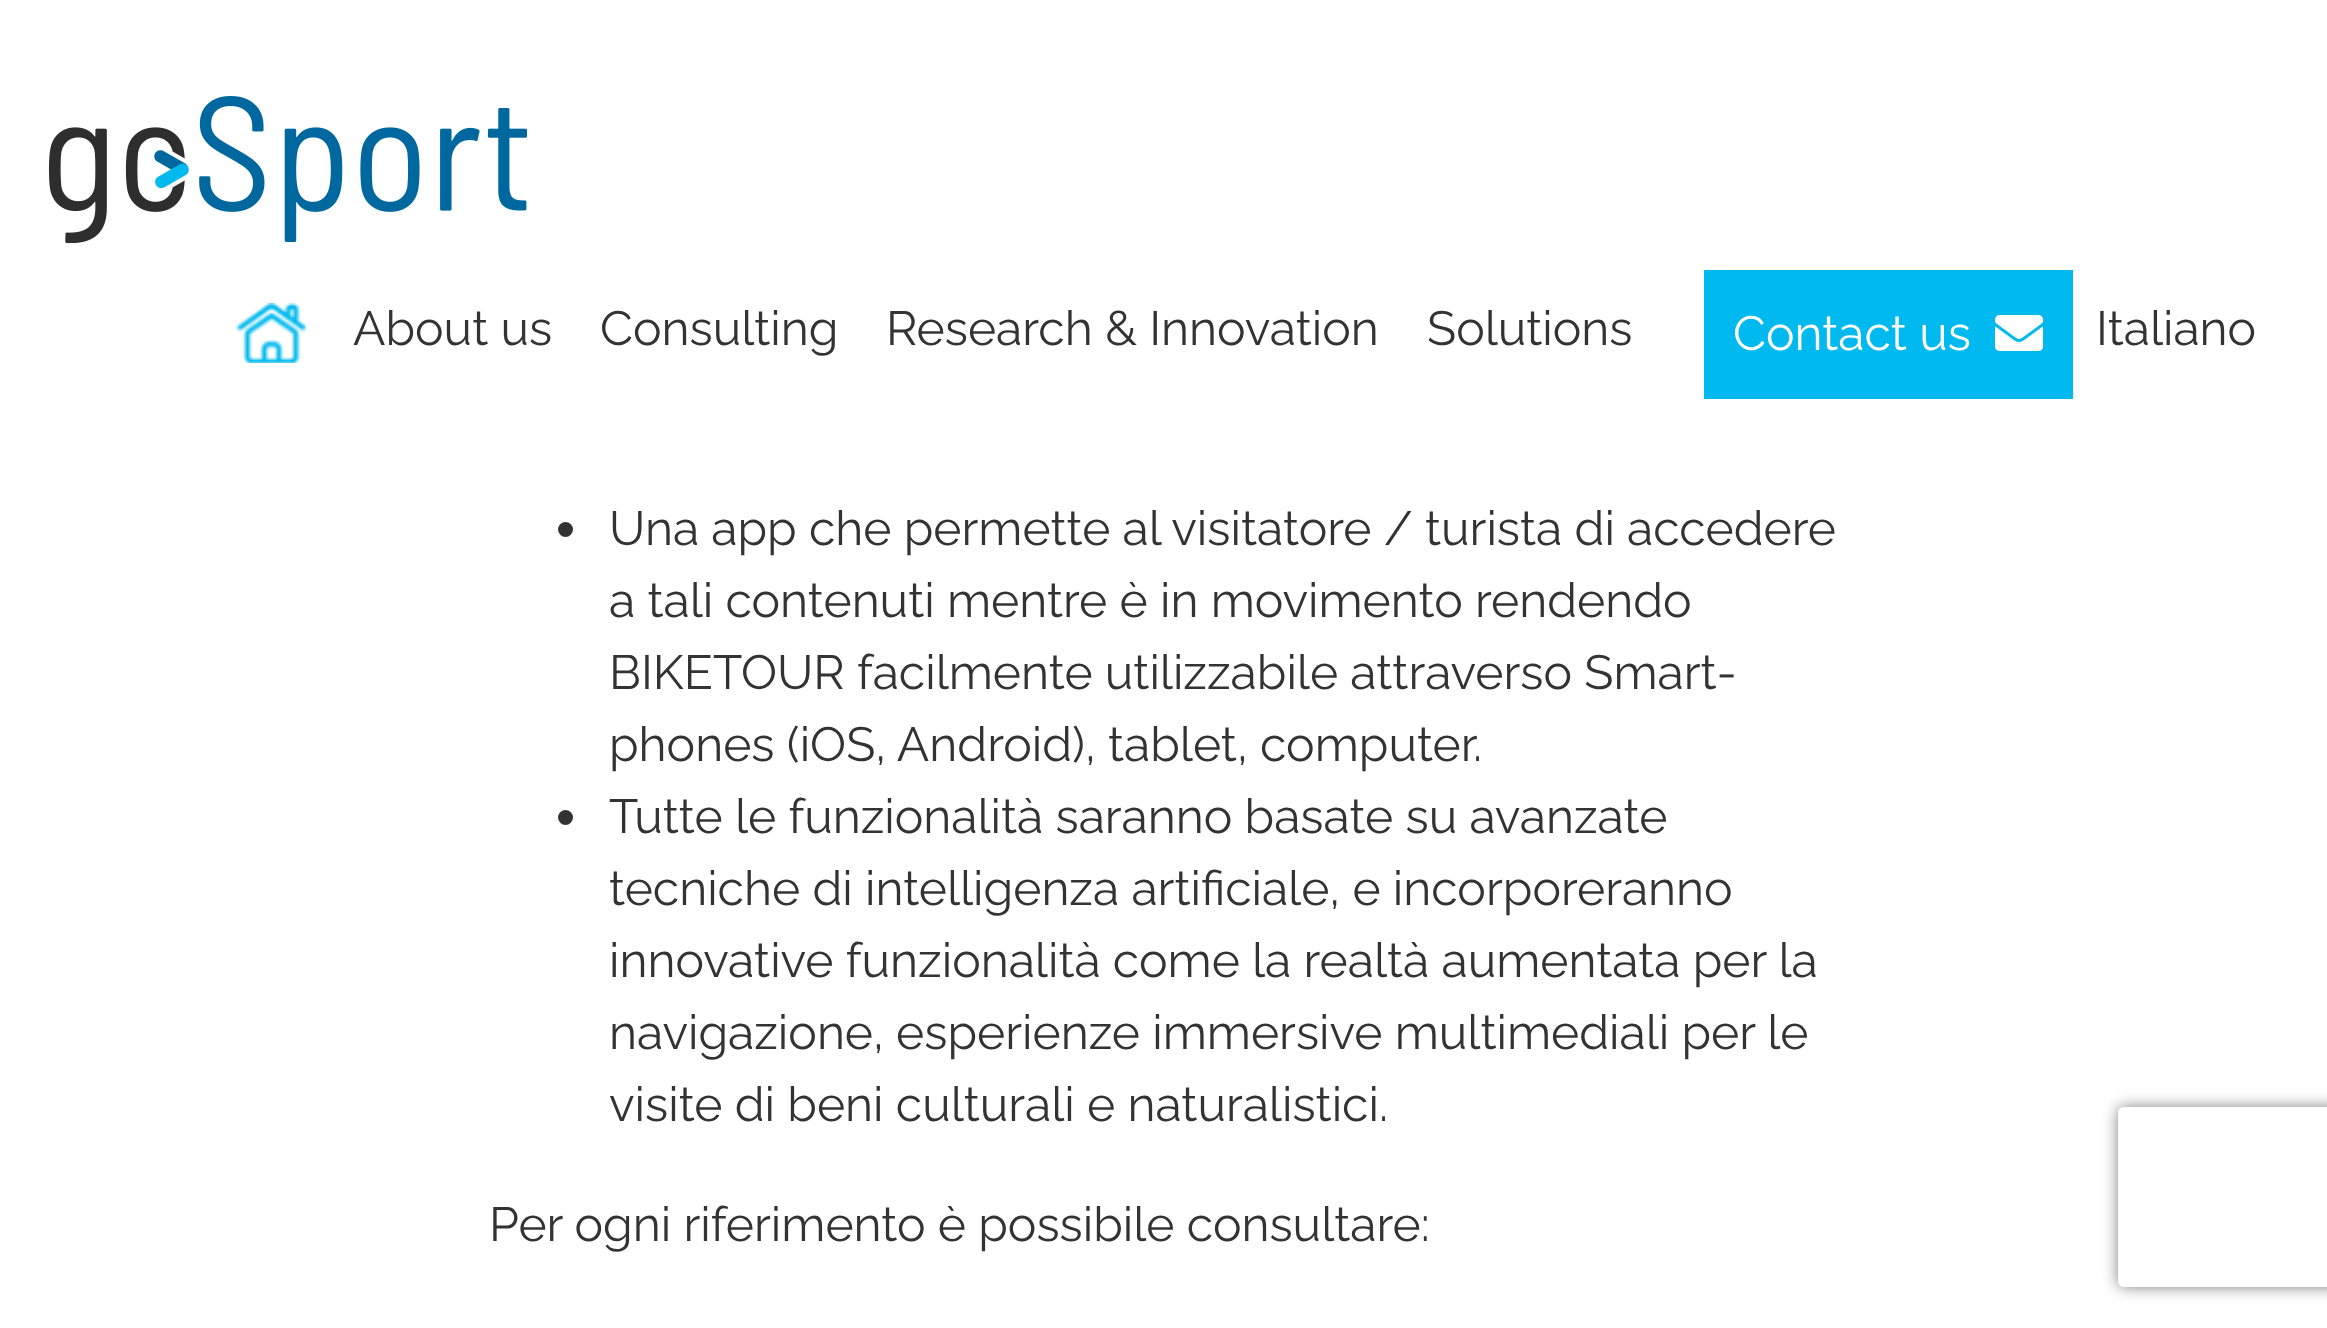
<svg xmlns="http://www.w3.org/2000/svg" width="2327" height="1328">
<defs>
<clipPath id="clip1"><path d="M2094 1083h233v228h-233zm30 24h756c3.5 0 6 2.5 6 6v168c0 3.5-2.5 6-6 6h-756c-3.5 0-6-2.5-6-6v-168c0-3.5 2.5-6 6-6z" clip-rule="evenodd"/></clipPath>
</defs>
<rect width="100%" height="100%" fill="#fff"/>
<image x="48" y="96" width="480" height="147" href="media/1.png"/>
<image x="235" y="303" width="71" height="60" href="media/2.png"/>
<text x="353" y="345" style="font-family:Raleway;font-size:48px;fill:#333">About us</text>
<text x="600" y="345" style="font-family:Raleway;font-size:48px;fill:#333">Consulting</text>
<text x="886" y="345" style="font-family:Raleway;font-size:48px;fill:#333">Research &amp; Innovation</text>
<text x="1427" y="345" style="font-family:Raleway;font-size:48px;fill:#333">Solutions</text>
<rect x="1704" y="270" width="369" height="129" fill="#00b9ee"/>
<text x="1733" y="350" style="font-family:Raleway;font-size:48px;fill:#fff">Contact us</text>
<image x="1995" y="315" width="48" height="36" href="media/3.png"/>
<text x="2096" y="345" style="font-family:Raleway;font-size:48px;fill:#333">Italiano</text>
<circle cx="565.5" cy="529.5" r="7.5" fill="#333"/>
<text x="609" y="545" style="font-family:Raleway;font-size:48px;fill:#333">Una app che permette al visitatore / turista di accedere</text>
<text x="609" y="617" style="font-family:Raleway;font-size:48px;fill:#333">a tali contenuti mentre è in movimento rendendo</text>
<text x="609" y="689" style="font-family:Raleway;font-size:48px;fill:#333">BIKETOUR facilmente utilizzabile attraverso Smart-</text>
<text x="609" y="761" style="font-family:Raleway;font-size:48px;fill:#333">phones (iOS, Android), tablet, computer.</text>
<circle cx="565.5" cy="817.5" r="7.5" fill="#333"/>
<text x="609" y="833" style="font-family:Raleway;font-size:48px;fill:#333">Tutte le funzionalità saranno basate su avanzate</text>
<text x="609" y="905" style="font-family:Raleway;font-size:48px;fill:#333">tecniche di intelligenza artificiale, e incorporeranno</text>
<text x="609" y="977" style="font-family:Raleway;font-size:48px;fill:#333">innovative funzionalità come la realtà aumentata per la</text>
<text x="609" y="1049" style="font-family:Raleway;font-size:48px;fill:#333">navigazione, esperienze immersive multimediali per le</text>
<text x="609" y="1121" style="font-family:Raleway;font-size:48px;fill:#333">visite di beni culturali e naturalistici.</text>
<text x="489" y="1241" style="font-family:Raleway;font-size:48px;fill:#333">Per ogni riferimento è possibile consultare:</text>
<g clip-path="url(#clip1)">
<rect x="2118" y="1107" width="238" height="180" rx="6" fill="#808080" filter="blur(7.5px)"/>
</g>
</svg>
